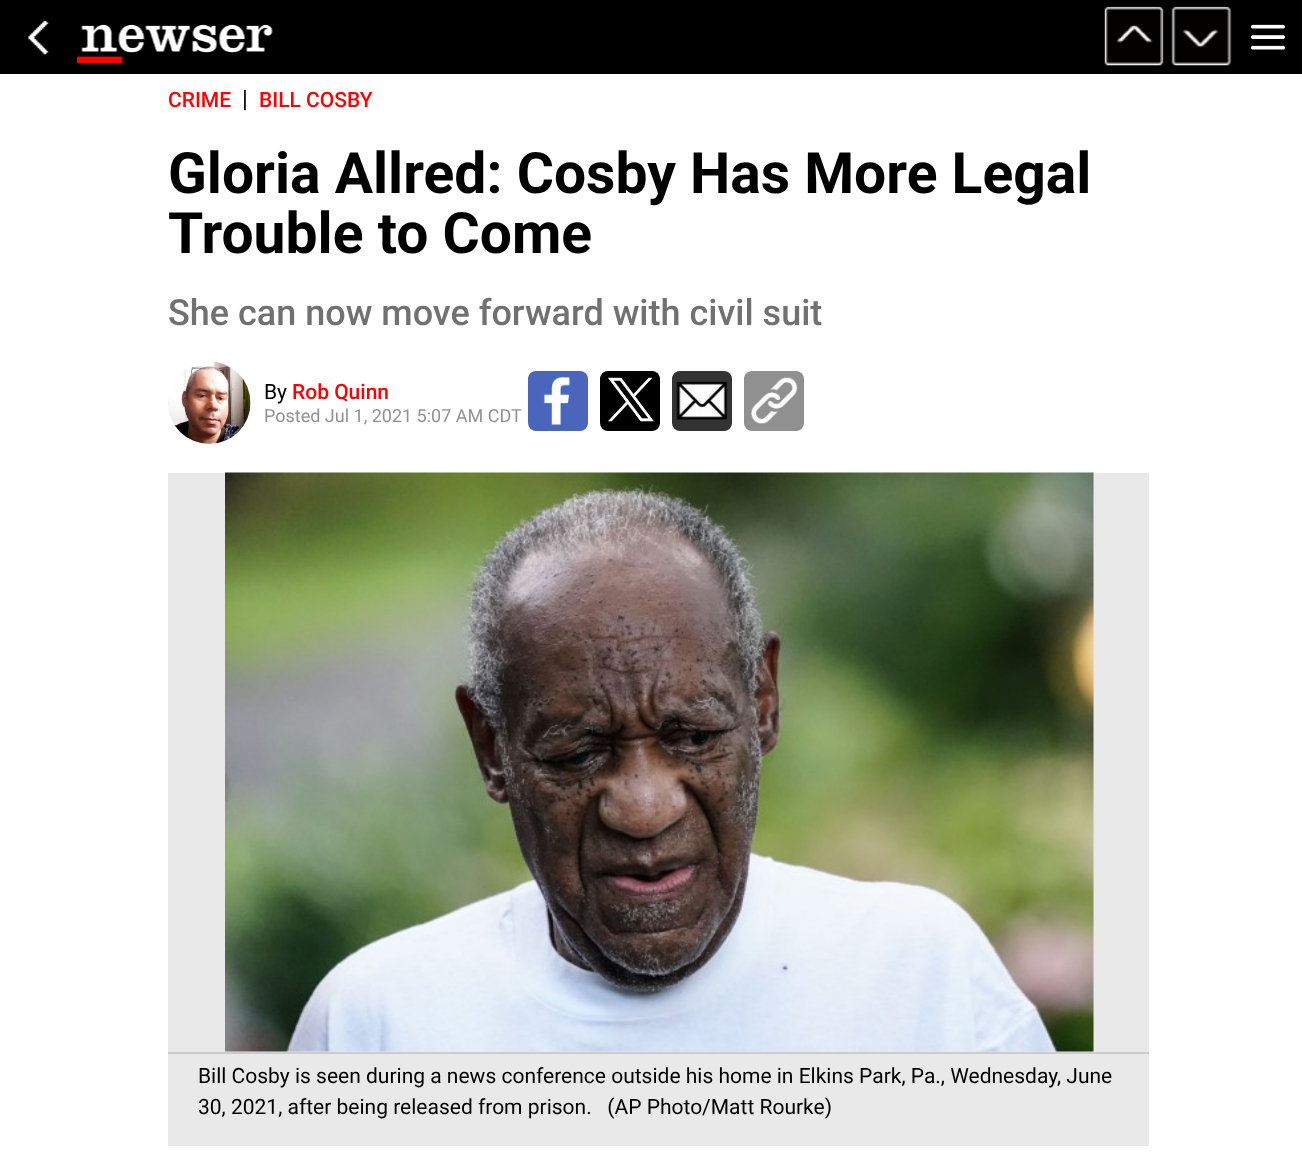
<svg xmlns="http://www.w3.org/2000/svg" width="1302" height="1167">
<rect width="100%" height="100%" fill="#fff"/>
<rect width="1302" height="74" fill="#000"/>
<image x="28" y="20" width="21" height="35" href="media/1.png"/>
<image x="77" y="24" width="196" height="39" href="media/2.png"/>
<image x="1104" y="6" width="60" height="60" href="media/3.png"/>
<image x="1171" y="6" width="61" height="60" href="media/4.png"/>
<image x="1251" y="24" width="34" height="26" href="media/5.png"/>
<text x="168" y="107" style="font-family:Roboto;font-size:21px;font-weight:500;fill:#f00">CRIME</text>
<text x="242" y="107" style="font-family:Roboto;font-size:24px;fill:#000">|</text>
<text x="259" y="107" style="font-family:Roboto;font-size:21px;font-weight:500;fill:#f00">BILL COSBY</text>
<text x="168" y="193" style="font-family:Roboto;font-size:57px;font-weight:bold;fill:#000">Gloria Allred: Cosby Has More Legal</text>
<text x="168" y="253" style="font-family:Roboto;font-size:57px;font-weight:bold;fill:#000">Trouble to Come</text>
<text x="168" y="325" style="font-family:Roboto;font-size:36px;font-weight:500;fill:#717171">She can now move forward with civil suit</text>
<image x="168" y="362" width="83" height="82" href="media/6.png"/>
<text x="264" y="399" style="font-family:Roboto;font-size:21px;fill:#000">By</text>
<text x="292" y="399" style="font-family:Roboto;font-size:21px;font-weight:500;fill:#f00">Rob Quinn</text>
<text x="264" y="422" style="font-family:Roboto;font-size:18px;fill:#919191">Posted Jul 1, 2021 5:07 AM CDT</text>
<rect x="528" y="371" width="60" height="60" rx="8" fill="#4a65bc"/>
<image x="543" y="376" width="27" height="49" href="media/7.png"/>
<rect x="600" y="371" width="60" height="60" rx="8" fill="#000"/>
<image x="608" y="377" width="46" height="45" href="media/8.png"/>
<rect x="672" y="371" width="60" height="60" rx="8" fill="#333"/>
<image x="676" y="381" width="52" height="39" href="media/9.png"/>
<rect x="744" y="371" width="60" height="60" rx="8" fill="#909090"/>
<image x="751" y="377" width="47" height="47" href="media/10.png"/>
<rect x="168" y="473" width="981" height="673" fill="#e9e9e9"/>
<rect x="168" y="1052" width="981" height="2" fill="#ccc"/>
<image x="225" y="472" width="869" height="580" href="media/11.png"/>
<text x="198" y="1083" style="font-family:Roboto;font-size:21px;fill:#000">Bill Cosby is seen during a news conference outside his home in Elkins Park, Pa., Wednesday, June</text>
<text x="198" y="1114" style="font-family:Roboto;font-size:21px;fill:#000" xml:space="preserve">30, 2021, after being released from prison.   (AP Photo/Matt Rourke)</text>
</svg>
